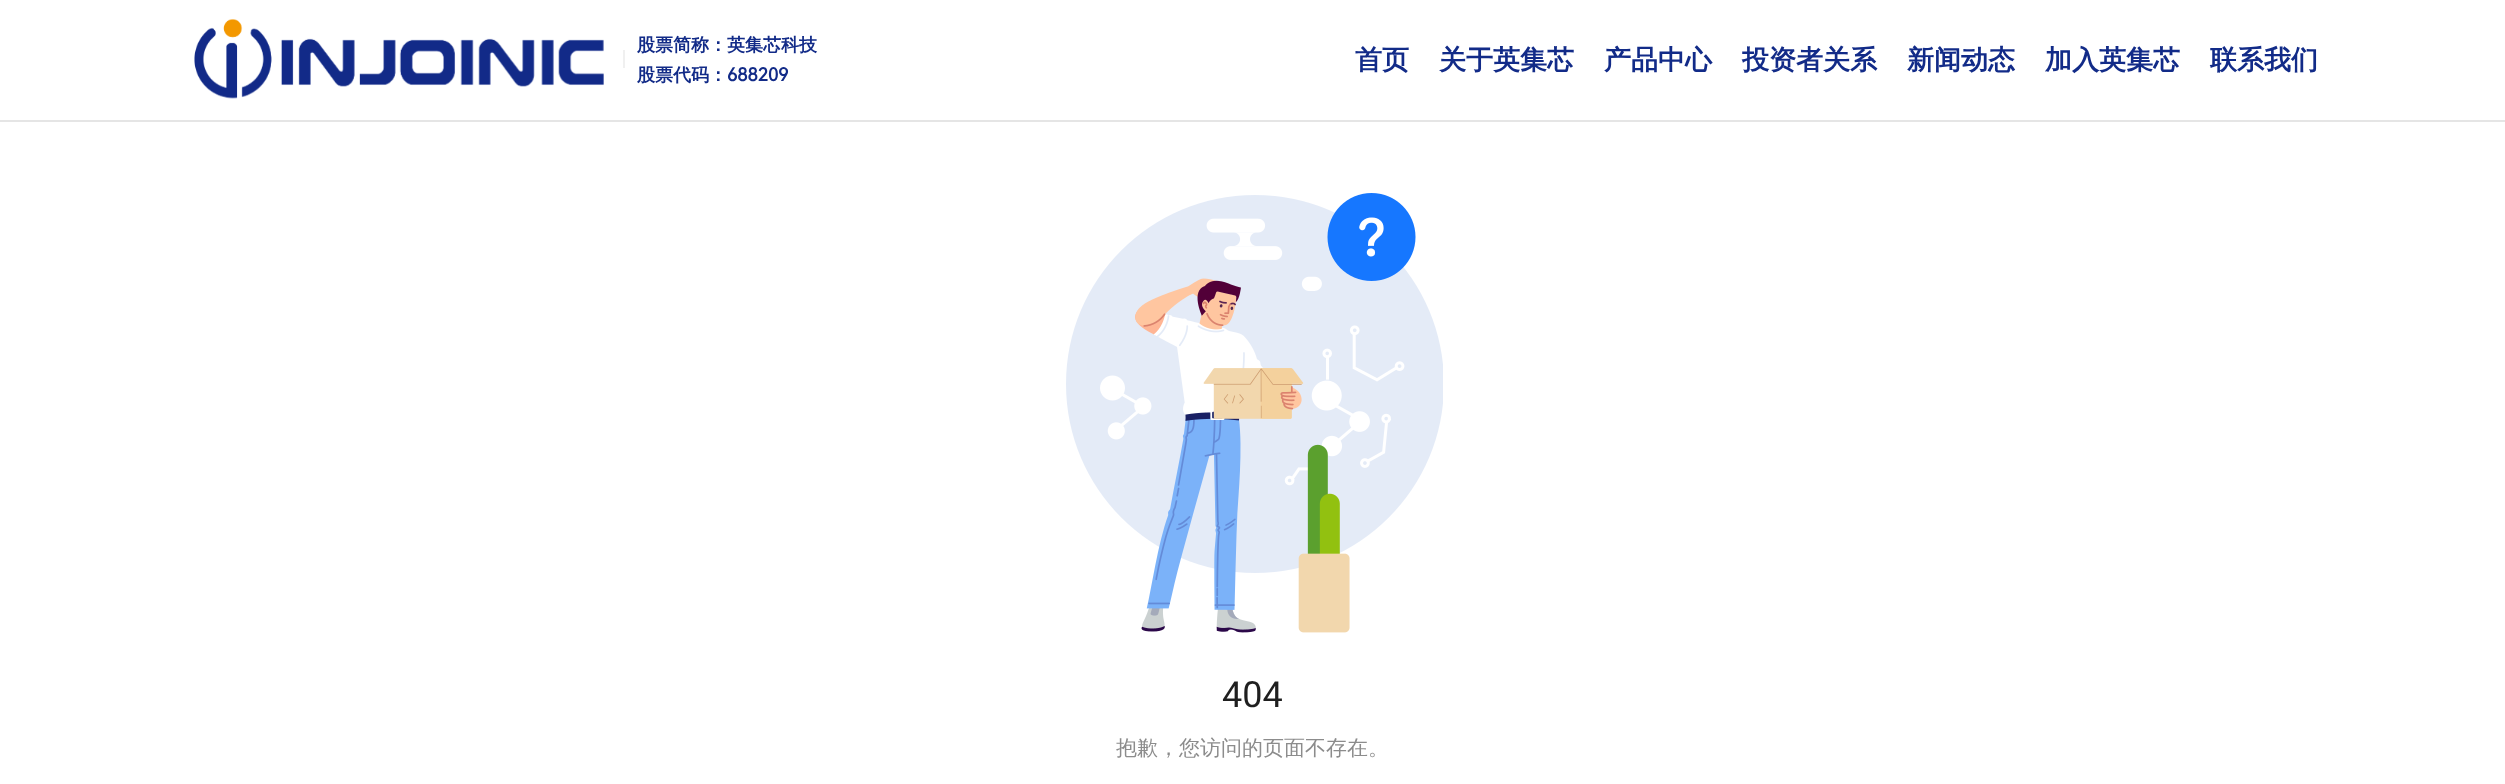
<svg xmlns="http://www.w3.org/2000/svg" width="2505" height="784">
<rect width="100%" height="100%" fill="#fff"/>
<rect y="120" width="2505" height="2" fill="#e5e5e5"/>
<image x="194" y="19" width="410" height="80" href="media/1.png"/>
<rect x="623" y="50" width="2" height="18" fill="#f0f0f0"/>
<text x="637" y="51" style="font-family:WenQuanYi Zen Hei;font-size:18px;font-weight:bold;fill:#122b88">股票简称：英集芯科技</text>
<text x="637" y="81" style="font-family:WenQuanYi Zen Hei;font-size:18px;font-weight:bold;fill:#122b88">股票代码：</text>
<text x="727" y="81" style="font-family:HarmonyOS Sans;font-size:18px;font-weight:bold;fill:#122b88">688209</text>
<text x="1355" y="69" style="font-family:WenQuanYi Zen Hei;font-size:27px;font-weight:bold;fill:#122b88">首页</text>
<text x="1439" y="69" style="font-family:WenQuanYi Zen Hei;font-size:27px;font-weight:bold;fill:#122b88">关于英集芯</text>
<text x="1604" y="69" style="font-family:WenQuanYi Zen Hei;font-size:27px;font-weight:bold;fill:#122b88">产品中心</text>
<text x="1742" y="69" style="font-family:WenQuanYi Zen Hei;font-size:27px;font-weight:bold;fill:#122b88">投资者关系</text>
<text x="1907" y="69" style="font-family:WenQuanYi Zen Hei;font-size:27px;font-weight:bold;fill:#122b88">新闻动态</text>
<text x="2045" y="69" style="font-family:WenQuanYi Zen Hei;font-size:27px;font-weight:bold;fill:#122b88">加入英集芯</text>
<text x="2210" y="69" style="font-family:WenQuanYi Zen Hei;font-size:27px;font-weight:bold;fill:#122b88">联系我们</text>
<image x="1066" y="193" width="377" height="440" href="media/2.png"/>
<text x="1222" y="707" style="font-family:Roboto;font-size:36px;fill:#1f1f1f">404</text>
<text x="1116" y="755" style="font-family:WenQuanYi Zen Hei;font-size:21px;font-weight:500;fill:#8c8c8c">抱歉，您访问的页面不存在。</text>
</svg>
